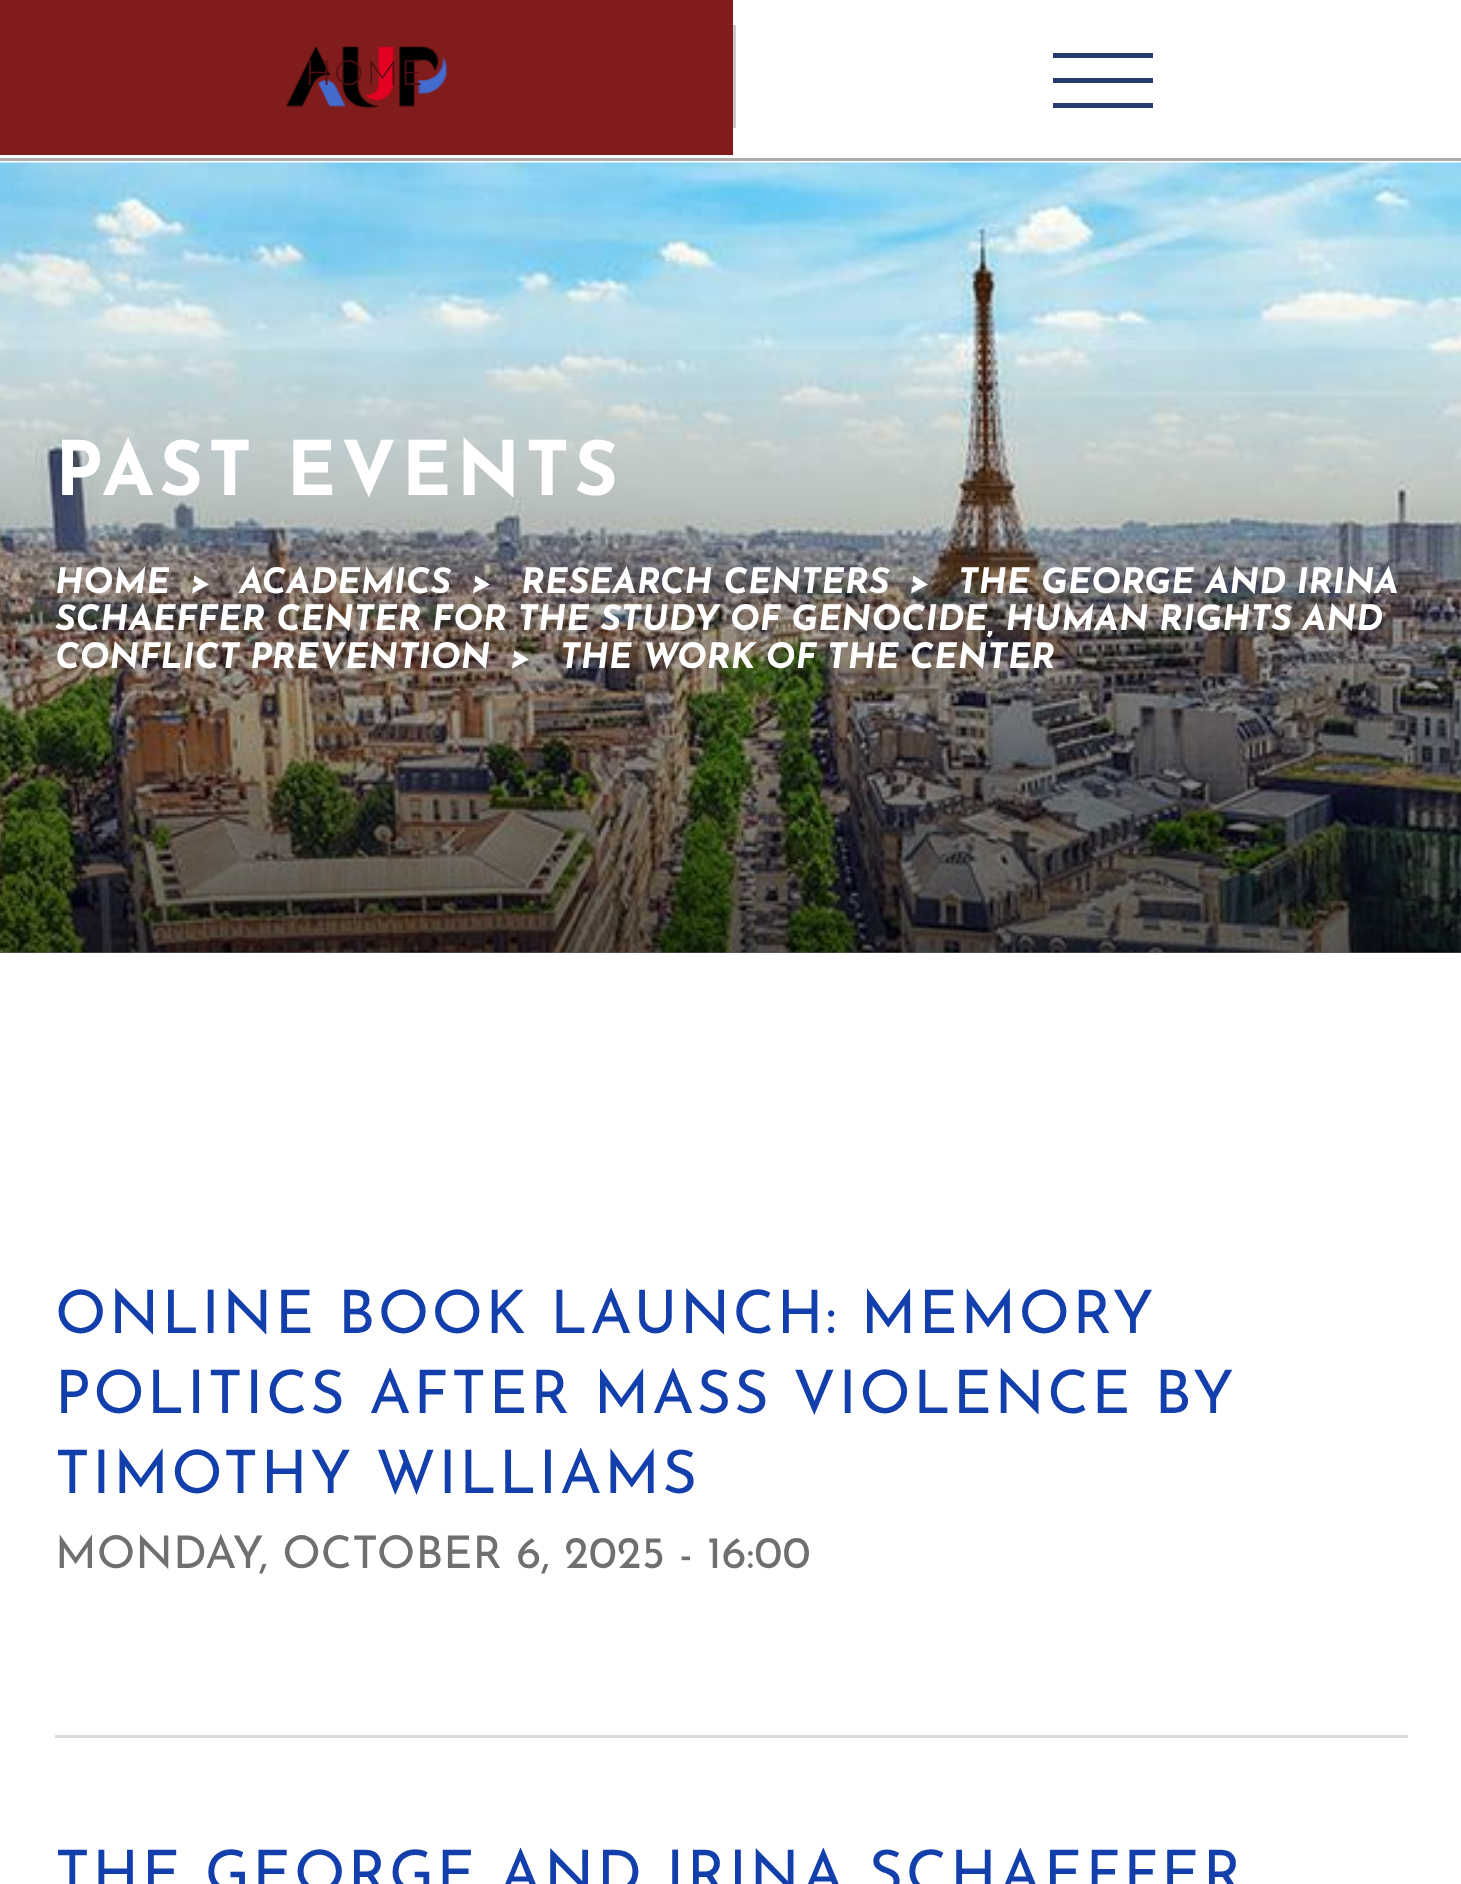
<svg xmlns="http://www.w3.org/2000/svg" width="1461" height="1884">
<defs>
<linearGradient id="g1" gradientUnits="userSpaceOnUse" x1="731" y1="327" x2="731" y2="953"><stop offset="0" stop-color="#000" stop-opacity="0"/><stop offset="1" stop-color="#000" stop-opacity="0.62"/></linearGradient>
</defs>
<rect width="100%" height="100%" fill="#fff"/>
<rect y="158" width="1461" height="3" fill="#adadad"/>
<rect width="733" height="155" fill="#801c1b"/>
<image x="286" y="46" width="162" height="63" href="media/1.png"/>
<text x="305" y="85" style="font-family:Josefin Sans;font-size:35px;font-weight:300;letter-spacing:2.5px;fill:#540f14">HOME</text>
<rect x="733" y="25" width="3" height="103" fill="#ccc"/>
<rect x="1053" y="78" width="100" height="5" fill="#263b6e"/>
<rect x="1053" y="53" width="100" height="5" fill="#263b6e"/>
<rect x="1053" y="103" width="100" height="5" fill="#263b6e"/>
<image x="0" y="162" width="1461" height="791" href="media/2.png"/>
<rect y="349" width="1461" height="604" fill="url(#g1)"/>
<text x="55" y="495" style="font-family:Josefin Sans;font-size:75px;font-weight:bold;letter-spacing:5px;fill:#fff">PAST EVENTS</text>
<text x="55" y="593" style="font-family:Josefin Sans;font-size:35px;font-weight:bold;font-style:italic;fill:#fff">HOME</text>
<text x="190" y="593" style="font-family:Josefin Sans;font-size:35px;font-weight:bold;font-style:italic;fill:#fff">&gt;</text>
<text x="239" y="593" style="font-family:Josefin Sans;font-size:35px;font-weight:bold;font-style:italic;fill:#fff">ACADEMICS</text>
<text x="471" y="593" style="font-family:Josefin Sans;font-size:35px;font-weight:bold;font-style:italic;fill:#fff">&gt;</text>
<text x="521" y="593" style="font-family:Josefin Sans;font-size:35px;font-weight:bold;font-style:italic;fill:#fff">RESEARCH CENTERS</text>
<text x="909" y="593" style="font-family:Josefin Sans;font-size:35px;font-weight:bold;font-style:italic;fill:#fff">&gt;</text>
<text x="958" y="593" style="font-family:Josefin Sans;font-size:35px;font-weight:bold;font-style:italic;fill:#fff">THE GEORGE AND IRINA</text>
<text x="55" y="630" style="font-family:Josefin Sans;font-size:35px;font-weight:bold;font-style:italic;fill:#fff">SCHAEFFER CENTER FOR THE STUDY OF GENOCIDE, HUMAN RIGHTS AND</text>
<text x="55" y="668" style="font-family:Josefin Sans;font-size:35px;font-weight:bold;font-style:italic;fill:#fff">CONFLICT PREVENTION</text>
<text x="510" y="668" style="font-family:Josefin Sans;font-size:35px;font-weight:bold;font-style:italic;fill:#fff">&gt;</text>
<text x="560" y="668" style="font-family:Josefin Sans;font-size:35px;font-weight:bold;font-style:italic;fill:#fff">THE WORK OF THE CENTER</text>
<rect x="55" y="1735" width="1353" height="3" fill="#dadada"/>
<text x="55" y="1333" style="font-family:Josefin Sans;font-size:60px;letter-spacing:2.5px;fill:#133fad">ONLINE BOOK LAUNCH: MEMORY</text>
<text x="55" y="1413" style="font-family:Josefin Sans;font-size:60px;letter-spacing:2.5px;fill:#133fad">POLITICS AFTER MASS VIOLENCE BY</text>
<text x="55" y="1493" style="font-family:Josefin Sans;font-size:60px;letter-spacing:2.5px;fill:#133fad">TIMOTHY WILLIAMS</text>
<text x="55" y="1568" style="font-family:Josefin Sans;font-size:45px;fill:#6f6f6f">MONDAY, OCTOBER 6, 2025 - 16:00</text>
<text x="55" y="1893" style="font-family:Josefin Sans;font-size:60px;letter-spacing:2.5px;fill:#133fad">THE GEORGE AND IRINA SCHAEFFER</text>
</svg>
